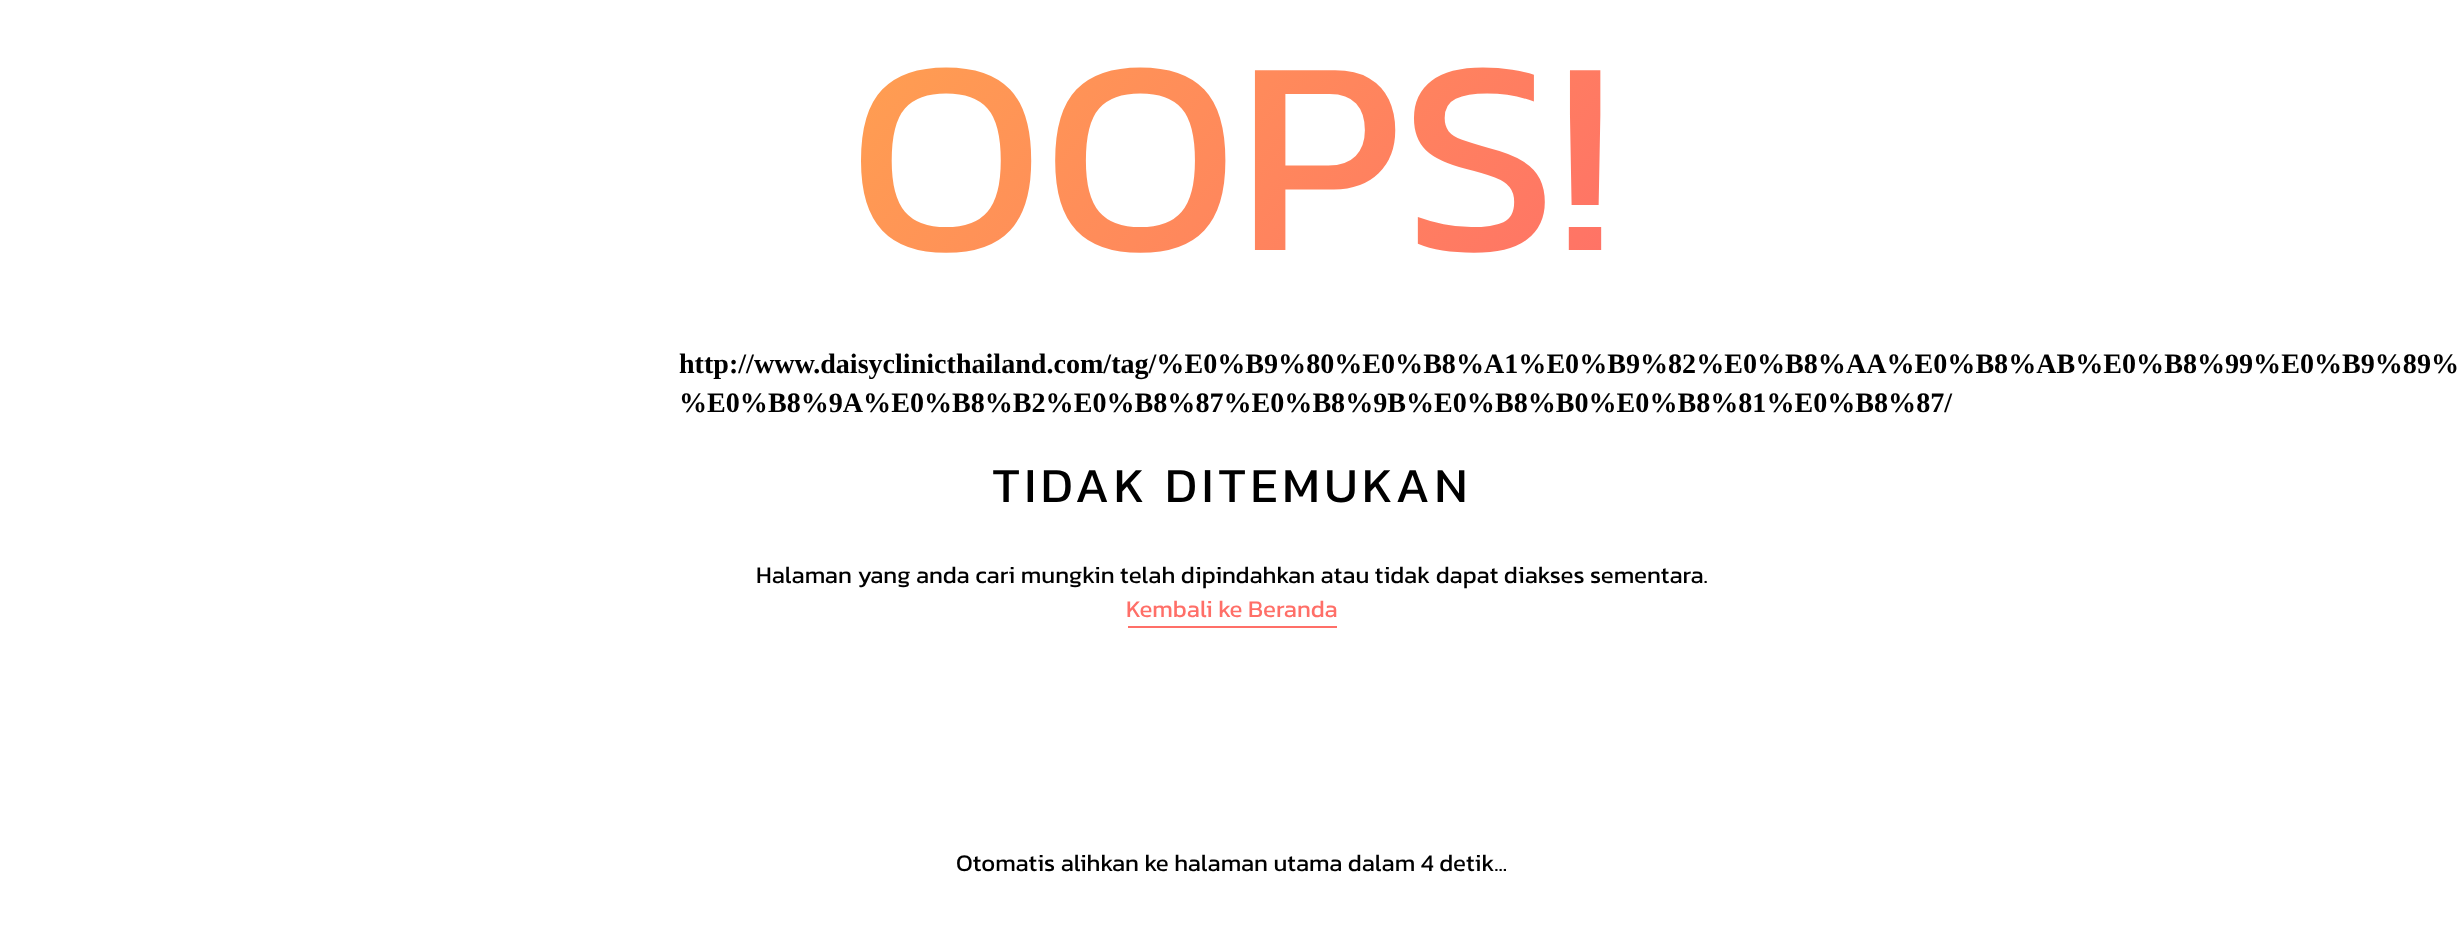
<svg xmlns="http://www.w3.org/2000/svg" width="2463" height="935">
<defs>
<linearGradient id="g1" gradientUnits="userSpaceOnUse" x1="911" y1="-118" x2="1552" y2="420"><stop offset="0" stop-color="#ffa34f"/><stop offset="1" stop-color="#ff6f68"/></linearGradient>
</defs>
<rect width="100%" height="100%" fill="#fff"/>
<text x="849" y="250" style="font-family:Kanit;font-size:279px;fill:url(#g1)">OOPS!</text>
<text x="679" y="373" style="font-family:Liberation Serif;font-size:28.08px;font-weight:bold;fill:#000">http://www.daisyclinicthailand.com/tag/%E0%B9%80%E0%B8%A1%E0%B9%82%E0%B8%AA%E0%B8%AB%E0%B8%99%E0%B9%89%</text>
<text x="679" y="412" style="font-family:Liberation Serif;font-size:28.08px;font-weight:bold;fill:#000">%E0%B8%9A%E0%B8%B2%E0%B8%87%E0%B8%9B%E0%B8%B0%E0%B8%81%E0%B8%87/</text>
<text x="992" y="502" style="font-family:Kanit;font-size:49.5px;letter-spacing:4.5px;fill:#000">TIDAK DITEMUKAN</text>
<text x="756" y="583" style="font-family:Kanit;font-size:24px;fill:#000">Halaman yang anda cari mungkin telah dipindahkan atau tidak dapat diakses sementara.</text>
<text x="1126" y="617" style="font-family:Kanit;font-size:24px;fill:#ff6f68">Kembali ke Beranda</text>
<rect x="1128" y="626" width="209" height="2" fill="#ff6f68"/>
<text x="956" y="871" style="font-family:Kanit;font-size:24px;fill:#000">Otomatis alihkan ke halaman utama dalam 4 detik...</text>
</svg>
